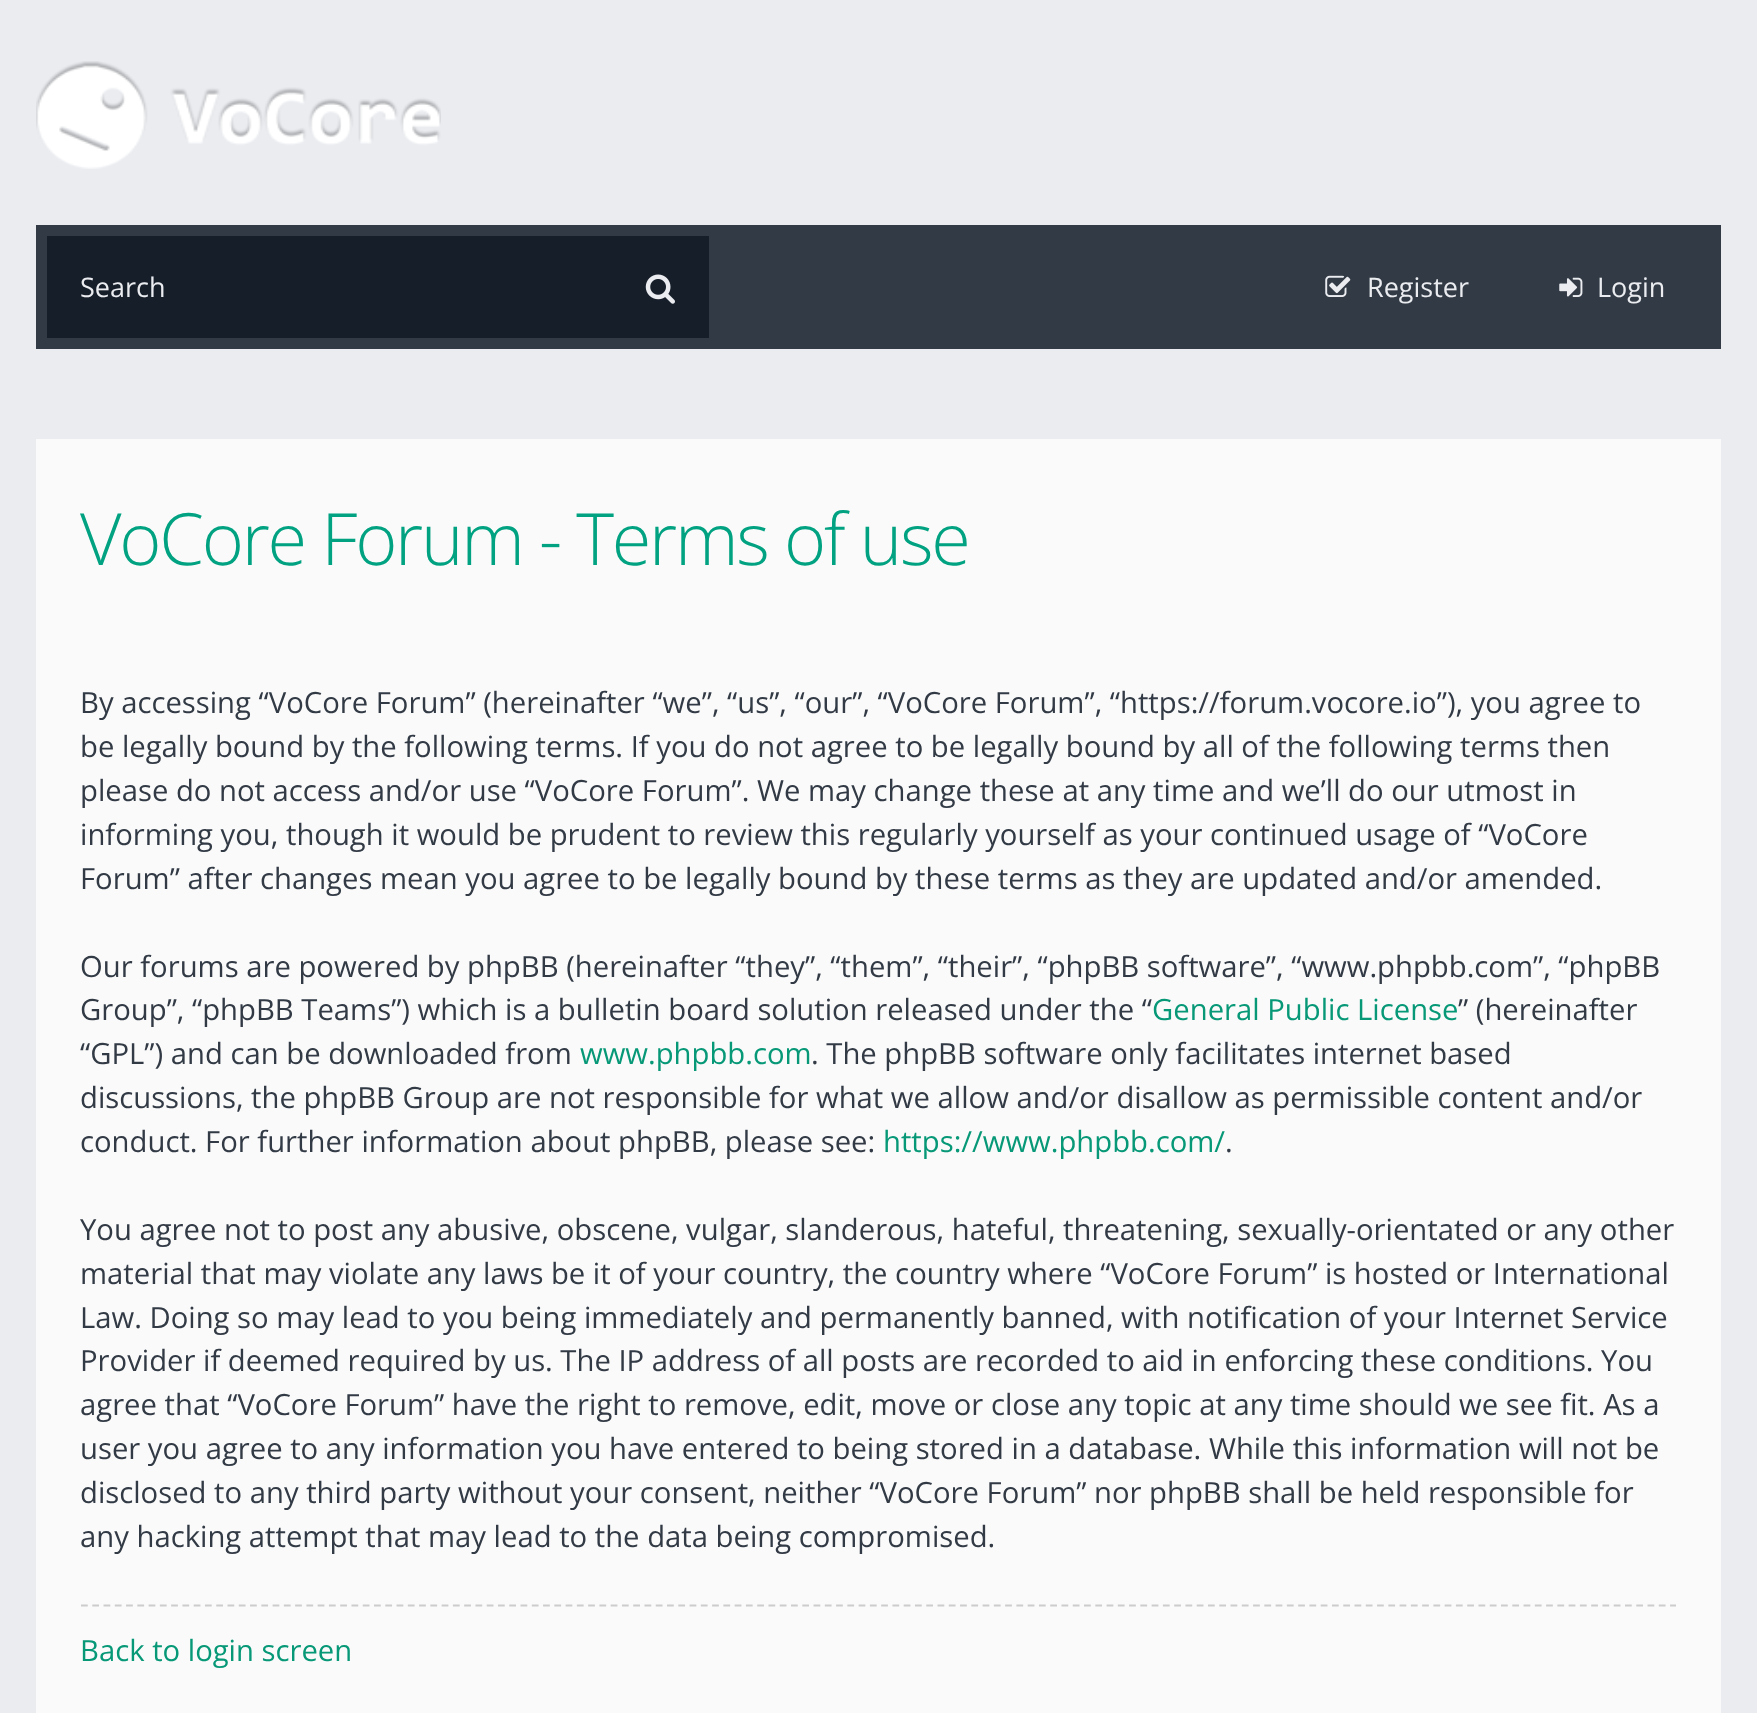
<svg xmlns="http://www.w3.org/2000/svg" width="1757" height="1713">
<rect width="100%" height="100%" fill="#eaecf0"/>
<image x="36" y="61" width="405" height="108" href="media/1.png"/>
<rect x="36" y="225" width="1685" height="124" fill="#323a45"/>
<rect x="47" y="236" width="662" height="102" fill="#161e29"/>
<text x="80" y="297" style="font-family:Open Sans;font-size:27px;fill:#eaecf0">Search</text>
<image x="645" y="274" width="30" height="30" href="media/2.png"/>
<image x="1325" y="275" width="26" height="22" href="media/3.png"/>
<text x="1367" y="297" style="font-family:Open Sans;font-size:27px;fill:#eaecf0">Register</text>
<image x="1559" y="277" width="24" height="20" href="media/4.png"/>
<text x="1597" y="297" style="font-family:Open Sans;font-size:27px;fill:#eaecf0">Login</text>
<rect x="36" y="439" width="1685" height="1274" fill="#fafafa"/>
<text x="80" y="565" style="font-family:Open Sans;font-size:72px;font-weight:300;letter-spacing:-2.25px;fill:#00a281">VoCore Forum - Terms of use</text>
<text x="80" y="713" style="font-family:Open Sans;font-size:29.25px;fill:#323a45">By accessing “VoCore Forum” (hereinafter “we”, “us”, “our”, “VoCore Forum”, “https://forum.vocore.io”), you agree to</text>
<text x="80" y="757" style="font-family:Open Sans;font-size:29.25px;fill:#323a45">be legally bound by the following terms. If you do not agree to be legally bound by all of the following terms then</text>
<text x="80" y="801" style="font-family:Open Sans;font-size:29.25px;fill:#323a45">please do not access and/or use “VoCore Forum”. We may change these at any time and we’ll do our utmost in</text>
<text x="80" y="845" style="font-family:Open Sans;font-size:29.25px;fill:#323a45">informing you, though it would be prudent to review this regularly yourself as your continued usage of “VoCore</text>
<text x="80" y="889" style="font-family:Open Sans;font-size:29.25px;fill:#323a45">Forum” after changes mean you agree to be legally bound by these terms as they are updated and/or amended.</text>
<text x="80" y="977" style="font-family:Open Sans;font-size:29.25px;fill:#323a45">Our forums are powered by phpBB (hereinafter “they”, “them”, “their”, “phpBB software”, “www.phpbb.com”, “phpBB</text>
<text x="80" y="1020" style="font-family:Open Sans;font-size:29.25px;fill:#323a45">Group”, “phpBB Teams”) which is a bulletin board solution released under the “</text>
<text x="1152" y="1020" style="font-family:Open Sans;font-size:29.25px;fill:#079877">General Public License</text>
<text x="1458" y="1020" style="font-family:Open Sans;font-size:29.25px;fill:#323a45">” (hereinafter</text>
<text x="80" y="1064" style="font-family:Open Sans;font-size:29.25px;fill:#323a45">“GPL”) and can be downloaded from</text>
<text x="580" y="1064" style="font-family:Open Sans;font-size:29.25px;fill:#079877">www.phpbb.com</text>
<text x="811" y="1064" style="font-family:Open Sans;font-size:29.25px;fill:#323a45">. The phpBB software only facilitates internet based</text>
<text x="80" y="1108" style="font-family:Open Sans;font-size:29.25px;fill:#323a45">discussions, the phpBB Group are not responsible for what we allow and/or disallow as permissible content and/or</text>
<text x="80" y="1152" style="font-family:Open Sans;font-size:29.25px;fill:#323a45">conduct. For further information about phpBB, please see:</text>
<text x="883" y="1152" style="font-family:Open Sans;font-size:29.25px;fill:#079877">https://www.phpbb.com/</text>
<text x="1225" y="1152" style="font-family:Open Sans;font-size:29.25px;fill:#323a45">.</text>
<text x="80" y="1240" style="font-family:Open Sans;font-size:29.25px;fill:#323a45">You agree not to post any abusive, obscene, vulgar, slanderous, hateful, threatening, sexually-orientated or any other</text>
<text x="80" y="1284" style="font-family:Open Sans;font-size:29.25px;fill:#323a45">material that may violate any laws be it of your country, the country where “VoCore Forum” is hosted or International</text>
<text x="80" y="1328" style="font-family:Open Sans;font-size:29.25px;fill:#323a45">Law. Doing so may lead to you being immediately and permanently banned, with notification of your Internet Service</text>
<text x="80" y="1371" style="font-family:Open Sans;font-size:29.25px;fill:#323a45">Provider if deemed required by us. The IP address of all posts are recorded to aid in enforcing these conditions. You</text>
<text x="80" y="1415" style="font-family:Open Sans;font-size:29.25px;fill:#323a45">agree that “VoCore Forum” have the right to remove, edit, move or close any topic at any time should we see fit. As a</text>
<text x="80" y="1459" style="font-family:Open Sans;font-size:29.25px;fill:#323a45">user you agree to any information you have entered to being stored in a database. While this information will not be</text>
<text x="80" y="1503" style="font-family:Open Sans;font-size:29.25px;fill:#323a45">disclosed to any third party without your consent, neither “VoCore Forum” nor phpBB shall be held responsible for</text>
<text x="80" y="1547" style="font-family:Open Sans;font-size:29.25px;fill:#323a45">any hacking attempt that may lead to the data being compromised.</text>
<path d="M81 1605.5h1595" fill="none" stroke="#ccc" stroke-width="2.2" stroke-dasharray="6.75 4.52"/>
<text x="80" y="1661" style="font-family:Open Sans;font-size:29.25px;fill:#079877">Back to login screen</text>
</svg>
